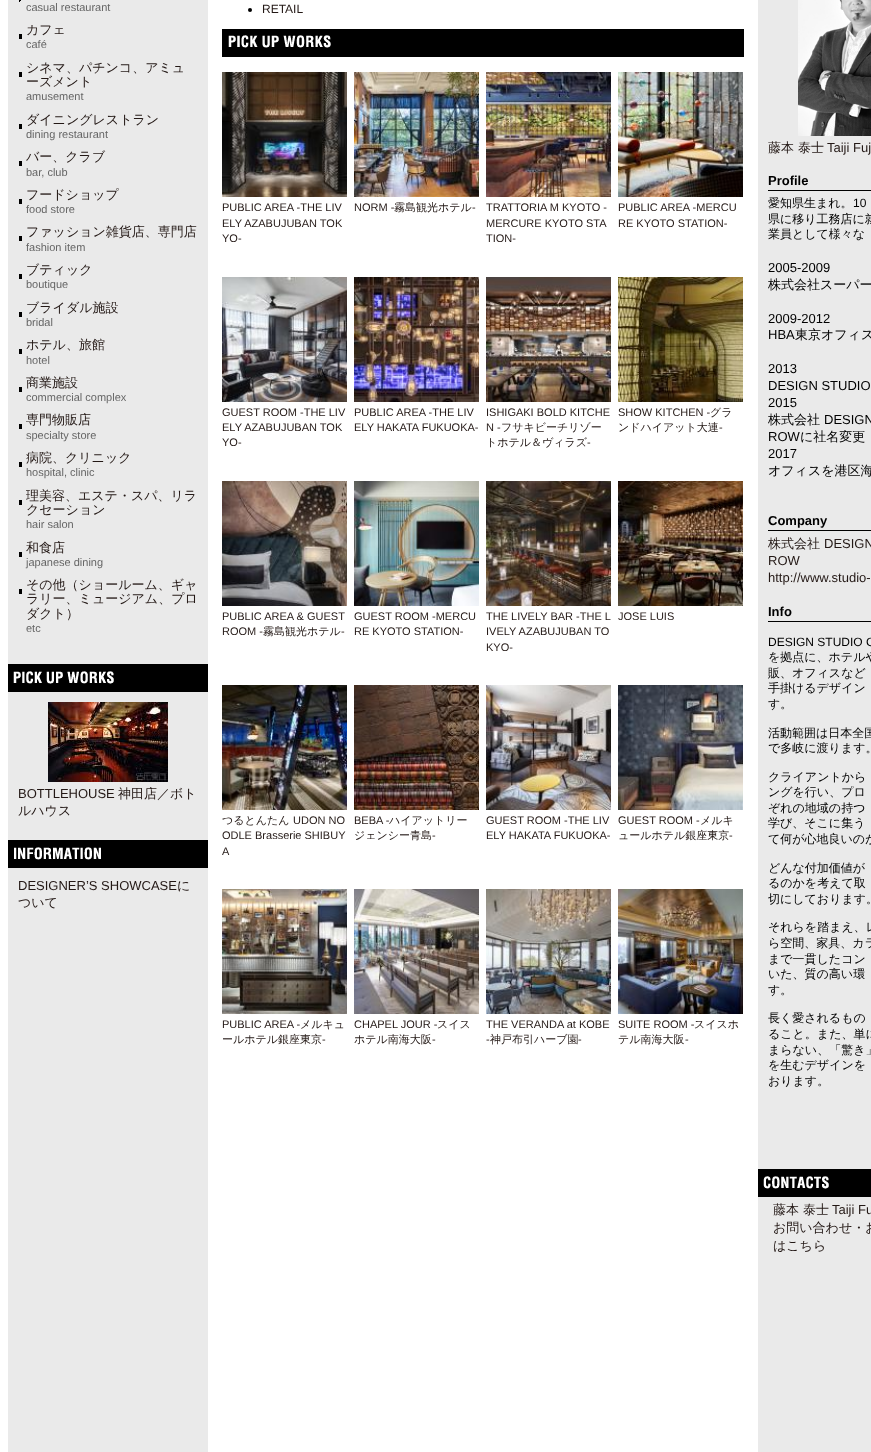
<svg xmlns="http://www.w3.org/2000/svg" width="871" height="1452">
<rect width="100%" height="100%" fill="#fff"/>
<image x="8" y="0" width="863" height="1452" href="media/1.png"/>
<image x="19" y="0" width="2" height="2" href="media/2.png"/>
<text x="26" y="11" style="font-family:Liberation Sans;font-size:11px;fill:#666">casual restaurant</text>
<rect x="19" y="34" width="3" height="5" fill="#000"/>
<text x="26" y="34" style="font-family:WenQuanYi Zen Hei;font-size:13px;font-weight:500;fill:#231815">カフェ</text>
<text x="26" y="48" style="font-family:Liberation Sans;font-size:11px;fill:#666">café</text>
<rect x="19" y="72" width="3" height="5" fill="#000"/>
<text x="26" y="72" style="font-family:WenQuanYi Zen Hei;font-size:13px;font-weight:500;fill:#231815">シネマ、パチンコ、アミュ</text>
<text x="26" y="86" style="font-family:WenQuanYi Zen Hei;font-size:13px;font-weight:500;fill:#231815">ーズメント</text>
<text x="26" y="100" style="font-family:Liberation Sans;font-size:11px;fill:#666">amusement</text>
<rect x="19" y="124" width="3" height="5" fill="#000"/>
<text x="26" y="124" style="font-family:WenQuanYi Zen Hei;font-size:13px;font-weight:500;fill:#231815">ダイニングレストラン</text>
<text x="26" y="138" style="font-family:Liberation Sans;font-size:11px;fill:#666">dining restaurant</text>
<rect x="19" y="161" width="3" height="5" fill="#000"/>
<text x="26" y="161" style="font-family:WenQuanYi Zen Hei;font-size:13px;font-weight:500;fill:#231815">バー、クラブ</text>
<text x="26" y="176" style="font-family:Liberation Sans;font-size:11px;fill:#666">bar, club</text>
<rect x="19" y="199" width="3" height="5" fill="#000"/>
<text x="26" y="199" style="font-family:WenQuanYi Zen Hei;font-size:13px;font-weight:500;fill:#231815">フードショップ</text>
<text x="26" y="213" style="font-family:Liberation Sans;font-size:11px;fill:#666">food store</text>
<rect x="19" y="236" width="3" height="5" fill="#000"/>
<text x="26" y="236" style="font-family:WenQuanYi Zen Hei;font-size:13px;font-weight:500;fill:#231815">ファッション雑貨店、専門店</text>
<text x="26" y="251" style="font-family:Liberation Sans;font-size:11px;fill:#666">fashion item</text>
<rect x="19" y="274" width="3" height="5" fill="#000"/>
<text x="26" y="274" style="font-family:WenQuanYi Zen Hei;font-size:13px;font-weight:500;fill:#231815">ブティック</text>
<text x="26" y="288" style="font-family:Liberation Sans;font-size:11px;fill:#666">boutique</text>
<rect x="19" y="312" width="3" height="5" fill="#000"/>
<text x="26" y="312" style="font-family:WenQuanYi Zen Hei;font-size:13px;font-weight:500;fill:#231815">ブライダル施設</text>
<text x="26" y="326" style="font-family:Liberation Sans;font-size:11px;fill:#666">bridal</text>
<rect x="19" y="349" width="3" height="5" fill="#000"/>
<text x="26" y="349" style="font-family:WenQuanYi Zen Hei;font-size:13px;font-weight:500;fill:#231815">ホテル、旅館</text>
<text x="26" y="364" style="font-family:Liberation Sans;font-size:11px;fill:#666">hotel</text>
<rect x="19" y="387" width="3" height="5" fill="#000"/>
<text x="26" y="387" style="font-family:WenQuanYi Zen Hei;font-size:13px;font-weight:500;fill:#231815">商業施設</text>
<text x="26" y="401" style="font-family:Liberation Sans;font-size:11px;fill:#666">commercial complex</text>
<rect x="19" y="424" width="3" height="5" fill="#000"/>
<text x="26" y="424" style="font-family:WenQuanYi Zen Hei;font-size:13px;font-weight:500;fill:#231815">専門物販店</text>
<text x="26" y="439" style="font-family:Liberation Sans;font-size:11px;fill:#666">specialty store</text>
<rect x="19" y="462" width="3" height="5" fill="#000"/>
<text x="26" y="462" style="font-family:WenQuanYi Zen Hei;font-size:13px;font-weight:500;fill:#231815">病院、クリニック</text>
<text x="26" y="476" style="font-family:Liberation Sans;font-size:11px;fill:#666">hospital, clinic</text>
<rect x="19" y="500" width="3" height="5" fill="#000"/>
<text x="26" y="500" style="font-family:WenQuanYi Zen Hei;font-size:13px;font-weight:500;fill:#231815">理美容、エステ・スパ、リラ</text>
<text x="26" y="514" style="font-family:WenQuanYi Zen Hei;font-size:13px;font-weight:500;fill:#231815">クセーション</text>
<text x="26" y="528" style="font-family:Liberation Sans;font-size:11px;fill:#666">hair salon</text>
<rect x="19" y="552" width="3" height="5" fill="#000"/>
<text x="26" y="552" style="font-family:WenQuanYi Zen Hei;font-size:13px;font-weight:500;fill:#231815">和食店</text>
<text x="26" y="566" style="font-family:Liberation Sans;font-size:11px;fill:#666">japanese dining</text>
<rect x="19" y="589" width="3" height="5" fill="#000"/>
<text x="26" y="589" style="font-family:WenQuanYi Zen Hei;font-size:13px;font-weight:500;fill:#231815">その他（ショールーム、ギャ</text>
<text x="26" y="603" style="font-family:WenQuanYi Zen Hei;font-size:13px;font-weight:500;fill:#231815">ラリー、ミュージアム、プロ</text>
<text x="26" y="618" style="font-family:WenQuanYi Zen Hei;font-size:13px;font-weight:500;fill:#231815">ダクト）</text>
<text x="26" y="632" style="font-family:Liberation Sans;font-size:11px;fill:#666">etc</text>
<image x="8" y="664" width="200" height="28" href="media/3.png"/>
<image x="48" y="702" width="120" height="80" href="media/4.png"/>
<text x="18" y="798" style="font-family:Liberation Sans;font-size:13px;fill:#231815">BOTTLEHOUSE</text>
<text x="118" y="798" style="font-family:WenQuanYi Zen Hei;font-size:13px;font-weight:500;fill:#231815">神田店／ボト</text>
<text x="18" y="815" style="font-family:WenQuanYi Zen Hei;font-size:13px;font-weight:500;fill:#231815">ルハウス</text>
<image x="8" y="840" width="200" height="28" href="media/5.png"/>
<text x="18" y="890" style="font-family:Liberation Sans;font-size:13px;fill:#231815">DESIGNER’S SHOWCASE</text>
<text x="177" y="890" style="font-family:WenQuanYi Zen Hei;font-size:13px;font-weight:500;fill:#231815">に</text>
<text x="18" y="907" style="font-family:WenQuanYi Zen Hei;font-size:13px;font-weight:500;fill:#231815">ついて</text>
<circle cx="250" cy="10" r="2" fill="#000"/>
<text x="262" y="13" style="font-family:Liberation Sans;font-size:12px;fill:#231815">RETAIL</text>
<rect x="222" y="29" width="522" height="28" fill="#000"/>
<image x="228" y="35" width="103" height="13" href="media/6.png"/>
<image x="222" y="72" width="125" height="125" href="media/7.png"/>
<text x="222" y="211" style="font-family:Liberation Sans;font-size:11px;fill:#231815">PUBLIC AREA -THE LIV</text>
<text x="222" y="227" style="font-family:Liberation Sans;font-size:11px;fill:#231815">ELY AZABUJUBAN TOK</text>
<text x="222" y="242" style="font-family:Liberation Sans;font-size:11px;fill:#231815">YO-</text>
<image x="354" y="72" width="125" height="125" href="media/8.png"/>
<text x="354" y="211" style="font-family:Liberation Sans;font-size:11px;fill:#231815">NORM -</text>
<text x="394" y="211" style="font-family:WenQuanYi Zen Hei;font-size:11px;font-weight:500;fill:#231815">霧島観光ホテル</text>
<text x="472" y="211" style="font-family:Liberation Sans;font-size:11px;fill:#231815">-</text>
<image x="486" y="72" width="125" height="125" href="media/9.png"/>
<text x="486" y="211" style="font-family:Liberation Sans;font-size:11px;fill:#231815">TRATTORIA M KYOTO -</text>
<text x="486" y="227" style="font-family:Liberation Sans;font-size:11px;fill:#231815">MERCURE KYOTO STA</text>
<text x="486" y="242" style="font-family:Liberation Sans;font-size:11px;fill:#231815">TION-</text>
<image x="618" y="72" width="125" height="125" href="media/10.png"/>
<text x="618" y="211" style="font-family:Liberation Sans;font-size:11px;fill:#231815">PUBLIC AREA -MERCU</text>
<text x="618" y="227" style="font-family:Liberation Sans;font-size:11px;fill:#231815">RE KYOTO STATION-</text>
<image x="222" y="277" width="125" height="125" href="media/11.png"/>
<text x="222" y="416" style="font-family:Liberation Sans;font-size:11px;fill:#231815">GUEST ROOM -THE LIV</text>
<text x="222" y="431" style="font-family:Liberation Sans;font-size:11px;fill:#231815">ELY AZABUJUBAN TOK</text>
<text x="222" y="446" style="font-family:Liberation Sans;font-size:11px;fill:#231815">YO-</text>
<image x="354" y="277" width="125" height="125" href="media/12.png"/>
<text x="354" y="416" style="font-family:Liberation Sans;font-size:11px;fill:#231815">PUBLIC AREA -THE LIV</text>
<text x="354" y="431" style="font-family:Liberation Sans;font-size:11px;fill:#231815">ELY HAKATA FUKUOKA-</text>
<image x="486" y="277" width="125" height="125" href="media/13.png"/>
<text x="486" y="416" style="font-family:Liberation Sans;font-size:11px;fill:#231815">ISHIGAKI BOLD KITCHE</text>
<text x="486" y="431" style="font-family:Liberation Sans;font-size:11px;fill:#231815">N -</text>
<text x="501" y="431" style="font-family:WenQuanYi Zen Hei;font-size:11px;font-weight:500;fill:#231815">フサキビーチリゾー</text>
<text x="486" y="446" style="font-family:WenQuanYi Zen Hei;font-size:11px;font-weight:500;fill:#231815">トホテル＆ヴィラズ</text>
<text x="587" y="446" style="font-family:Liberation Sans;font-size:11px;fill:#231815">-</text>
<image x="618" y="277" width="125" height="125" href="media/14.png"/>
<text x="618" y="416" style="font-family:Liberation Sans;font-size:11px;fill:#231815">SHOW KITCHEN -</text>
<text x="710" y="416" style="font-family:WenQuanYi Zen Hei;font-size:11px;font-weight:500;fill:#231815">グラ</text>
<text x="618" y="431" style="font-family:WenQuanYi Zen Hei;font-size:11px;font-weight:500;fill:#231815">ンドハイアット大連</text>
<text x="719" y="431" style="font-family:Liberation Sans;font-size:11px;fill:#231815">-</text>
<image x="222" y="481" width="125" height="125" href="media/15.png"/>
<text x="222" y="620" style="font-family:Liberation Sans;font-size:11px;fill:#231815">PUBLIC AREA &amp; GUEST</text>
<text x="222" y="635" style="font-family:Liberation Sans;font-size:11px;fill:#231815">ROOM -</text>
<text x="263" y="635" style="font-family:WenQuanYi Zen Hei;font-size:11px;font-weight:500;fill:#231815">霧島観光ホテル</text>
<text x="341" y="635" style="font-family:Liberation Sans;font-size:11px;fill:#231815">-</text>
<image x="354" y="481" width="125" height="125" href="media/16.png"/>
<text x="354" y="620" style="font-family:Liberation Sans;font-size:11px;fill:#231815">GUEST ROOM -MERCU</text>
<text x="354" y="635" style="font-family:Liberation Sans;font-size:11px;fill:#231815">RE KYOTO STATION-</text>
<image x="486" y="481" width="125" height="125" href="media/17.png"/>
<text x="486" y="620" style="font-family:Liberation Sans;font-size:11px;fill:#231815">THE LIVELY BAR -THE L</text>
<text x="486" y="635" style="font-family:Liberation Sans;font-size:11px;fill:#231815">IVELY AZABUJUBAN TO</text>
<text x="486" y="651" style="font-family:Liberation Sans;font-size:11px;fill:#231815">KYO-</text>
<image x="618" y="481" width="125" height="125" href="media/18.png"/>
<text x="618" y="620" style="font-family:Liberation Sans;font-size:11px;fill:#231815">JOSE LUIS</text>
<image x="222" y="685" width="125" height="125" href="media/19.png"/>
<text x="222" y="824" style="font-family:WenQuanYi Zen Hei;font-size:11px;font-weight:500;fill:#231815">つるとんたん</text>
<text x="293" y="824" style="font-family:Liberation Sans;font-size:11px;fill:#231815">UDON NO</text>
<text x="222" y="839" style="font-family:Liberation Sans;font-size:11px;fill:#231815">ODLE Brasserie SHIBUY</text>
<text x="222" y="855" style="font-family:Liberation Sans;font-size:11px;fill:#231815">A</text>
<image x="354" y="685" width="125" height="125" href="media/20.png"/>
<text x="354" y="824" style="font-family:Liberation Sans;font-size:11px;fill:#231815">BEBA -</text>
<text x="389" y="824" style="font-family:WenQuanYi Zen Hei;font-size:11px;font-weight:500;fill:#231815">ハイアットリー</text>
<text x="354" y="839" style="font-family:WenQuanYi Zen Hei;font-size:11px;font-weight:500;fill:#231815">ジェンシー青島</text>
<text x="432" y="839" style="font-family:Liberation Sans;font-size:11px;fill:#231815">-</text>
<image x="486" y="685" width="125" height="125" href="media/21.png"/>
<text x="486" y="824" style="font-family:Liberation Sans;font-size:11px;fill:#231815">GUEST ROOM -THE LIV</text>
<text x="486" y="839" style="font-family:Liberation Sans;font-size:11px;fill:#231815">ELY HAKATA FUKUOKA-</text>
<image x="618" y="685" width="125" height="125" href="media/22.png"/>
<text x="618" y="824" style="font-family:Liberation Sans;font-size:11px;fill:#231815">GUEST ROOM -</text>
<text x="700" y="824" style="font-family:WenQuanYi Zen Hei;font-size:11px;font-weight:500;fill:#231815">メルキ</text>
<text x="618" y="839" style="font-family:WenQuanYi Zen Hei;font-size:11px;font-weight:500;fill:#231815">ュールホテル銀座東京</text>
<text x="729" y="839" style="font-family:Liberation Sans;font-size:11px;fill:#231815">-</text>
<image x="222" y="889" width="125" height="125" href="media/23.png"/>
<text x="222" y="1028" style="font-family:Liberation Sans;font-size:11px;fill:#231815">PUBLIC AREA -</text>
<text x="300" y="1028" style="font-family:WenQuanYi Zen Hei;font-size:11px;font-weight:500;fill:#231815">メルキュ</text>
<text x="222" y="1043" style="font-family:WenQuanYi Zen Hei;font-size:11px;font-weight:500;fill:#231815">ールホテル銀座東京</text>
<text x="322" y="1043" style="font-family:Liberation Sans;font-size:11px;fill:#231815">-</text>
<image x="354" y="889" width="125" height="125" href="media/24.png"/>
<text x="354" y="1028" style="font-family:Liberation Sans;font-size:11px;fill:#231815">CHAPEL JOUR -</text>
<text x="437" y="1028" style="font-family:WenQuanYi Zen Hei;font-size:11px;font-weight:500;fill:#231815">スイス</text>
<text x="354" y="1043" style="font-family:WenQuanYi Zen Hei;font-size:11px;font-weight:500;fill:#231815">ホテル南海大阪</text>
<text x="432" y="1043" style="font-family:Liberation Sans;font-size:11px;fill:#231815">-</text>
<image x="486" y="889" width="125" height="125" href="media/25.png"/>
<text x="486" y="1028" style="font-family:Liberation Sans;font-size:11px;fill:#231815">THE VERANDA at KOBE</text>
<text x="486" y="1043" style="font-family:Liberation Sans;font-size:11px;fill:#231815">-</text>
<text x="490" y="1043" style="font-family:WenQuanYi Zen Hei;font-size:11px;font-weight:500;fill:#231815">神戸布引ハーブ園</text>
<text x="578" y="1043" style="font-family:Liberation Sans;font-size:11px;fill:#231815">-</text>
<image x="618" y="889" width="125" height="125" href="media/26.png"/>
<text x="618" y="1028" style="font-family:Liberation Sans;font-size:11px;fill:#231815">SUITE ROOM -</text>
<text x="694" y="1028" style="font-family:WenQuanYi Zen Hei;font-size:11px;font-weight:500;fill:#231815">スイスホ</text>
<text x="618" y="1043" style="font-family:WenQuanYi Zen Hei;font-size:11px;font-weight:500;fill:#231815">テル南海大阪</text>
<text x="685" y="1043" style="font-family:Liberation Sans;font-size:11px;fill:#231815">-</text>
<image x="798" y="0" width="73" height="136" href="media/27.png"/>
<text x="768" y="152" style="font-family:WenQuanYi Zen Hei;font-size:13px;font-weight:500;fill:#231815">藤本 泰士</text>
<text x="827" y="152" style="font-family:Liberation Sans;font-size:13px;fill:#231815">Taiji Fuj</text>
<rect x="768" y="190" width="103" height="1" fill="#000"/>
<text x="768" y="185" style="font-family:Liberation Sans;font-size:13px;font-weight:bold;fill:#000">Profile</text>
<text x="768" y="207" style="font-family:WenQuanYi Zen Hei;font-size:12px;font-weight:500;fill:#000">愛知県生まれ。</text>
<text x="853" y="207" style="font-family:Liberation Sans;font-size:12px;fill:#000">10</text>
<text x="768" y="223" style="font-family:WenQuanYi Zen Hei;font-size:12px;font-weight:500;fill:#000">県に移り工務店に就</text>
<text x="768" y="238" style="font-family:WenQuanYi Zen Hei;font-size:12px;font-weight:500;fill:#000">業員として様々な</text>
<text x="768" y="272" style="font-family:Liberation Sans;font-size:13px;fill:#000">2005-2009</text>
<text x="768" y="289" style="font-family:WenQuanYi Zen Hei;font-size:13px;font-weight:500;fill:#000">株式会社スーパー</text>
<text x="768" y="323" style="font-family:Liberation Sans;font-size:13px;fill:#000">2009-2012</text>
<text x="768" y="339" style="font-family:Liberation Sans;font-size:13px;fill:#000">HBA</text>
<text x="795" y="339" style="font-family:WenQuanYi Zen Hei;font-size:13px;font-weight:500;fill:#000">東京オフィス</text>
<text x="768" y="373" style="font-family:Liberation Sans;font-size:13px;fill:#000">2013</text>
<text x="768" y="390" style="font-family:Liberation Sans;font-size:13px;fill:#000">DESIGN STUDIO</text>
<text x="768" y="407" style="font-family:Liberation Sans;font-size:13px;fill:#000">2015</text>
<text x="768" y="424" style="font-family:WenQuanYi Zen Hei;font-size:13px;font-weight:500;fill:#000">株式会社</text>
<text x="824" y="424" style="font-family:Liberation Sans;font-size:13px;fill:#000">DESIGN</text>
<text x="768" y="441" style="font-family:Liberation Sans;font-size:13px;fill:#000">ROW</text>
<text x="800" y="441" style="font-family:WenQuanYi Zen Hei;font-size:13px;font-weight:500;fill:#000">に社名変更</text>
<text x="768" y="458" style="font-family:Liberation Sans;font-size:13px;fill:#000">2017</text>
<text x="768" y="475" style="font-family:WenQuanYi Zen Hei;font-size:13px;font-weight:500;fill:#000">オフィスを港区海</text>
<rect x="768" y="530" width="103" height="1" fill="#000"/>
<text x="768" y="525" style="font-family:Liberation Sans;font-size:13px;font-weight:bold;fill:#000">Company</text>
<text x="768" y="548" style="font-family:WenQuanYi Zen Hei;font-size:13px;font-weight:500;fill:#231815">株式会社</text>
<text x="824" y="548" style="font-family:Liberation Sans;font-size:13px;fill:#231815">DESIGN</text>
<text x="768" y="565" style="font-family:Liberation Sans;font-size:13px;fill:#231815">ROW</text>
<text x="768" y="582" style="font-family:Liberation Sans;font-size:13px;fill:#231815">http://www.studio-</text>
<rect x="768" y="621" width="103" height="1" fill="#000"/>
<text x="768" y="616" style="font-family:Liberation Sans;font-size:13px;font-weight:bold;fill:#000">Info</text>
<text x="768" y="646" style="font-family:Liberation Sans;font-size:12px;fill:#000">DESIGN STUDIO C</text>
<text x="768" y="661" style="font-family:WenQuanYi Zen Hei;font-size:12px;font-weight:500;fill:#000">を拠点に、ホテルや</text>
<text x="768" y="677" style="font-family:WenQuanYi Zen Hei;font-size:12px;font-weight:500;fill:#000">販、オフィスなど</text>
<text x="768" y="692" style="font-family:WenQuanYi Zen Hei;font-size:12px;font-weight:500;fill:#000">手掛けるデザイン</text>
<text x="768" y="708" style="font-family:WenQuanYi Zen Hei;font-size:12px;font-weight:500;fill:#000">す。</text>
<text x="768" y="737" style="font-family:WenQuanYi Zen Hei;font-size:12px;font-weight:500;fill:#000">活動範囲は日本全国</text>
<text x="768" y="752" style="font-family:WenQuanYi Zen Hei;font-size:12px;font-weight:500;fill:#000">で多岐に渡ります。</text>
<text x="768" y="781" style="font-family:WenQuanYi Zen Hei;font-size:12px;font-weight:500;fill:#000">クライアントから</text>
<text x="768" y="796" style="font-family:WenQuanYi Zen Hei;font-size:12px;font-weight:500;fill:#000">ングを行い、プロ</text>
<text x="768" y="812" style="font-family:WenQuanYi Zen Hei;font-size:12px;font-weight:500;fill:#000">ぞれの地域の持つ</text>
<text x="768" y="827" style="font-family:WenQuanYi Zen Hei;font-size:12px;font-weight:500;fill:#000">学び、そこに集う</text>
<text x="768" y="843" style="font-family:WenQuanYi Zen Hei;font-size:12px;font-weight:500;fill:#000">て何が心地良いのか</text>
<text x="768" y="872" style="font-family:WenQuanYi Zen Hei;font-size:12px;font-weight:500;fill:#000">どんな付加価値が</text>
<text x="768" y="887" style="font-family:WenQuanYi Zen Hei;font-size:12px;font-weight:500;fill:#000">るのかを考えて取</text>
<text x="768" y="903" style="font-family:WenQuanYi Zen Hei;font-size:12px;font-weight:500;fill:#000">切にしております。</text>
<text x="768" y="931" style="font-family:WenQuanYi Zen Hei;font-size:12px;font-weight:500;fill:#000">それらを踏まえ、レ</text>
<text x="768" y="947" style="font-family:WenQuanYi Zen Hei;font-size:12px;font-weight:500;fill:#000">ら空間、家具、カラ</text>
<text x="768" y="963" style="font-family:WenQuanYi Zen Hei;font-size:12px;font-weight:500;fill:#000">まで一貫したコン</text>
<text x="768" y="978" style="font-family:WenQuanYi Zen Hei;font-size:12px;font-weight:500;fill:#000">いた、質の高い環</text>
<text x="768" y="994" style="font-family:WenQuanYi Zen Hei;font-size:12px;font-weight:500;fill:#000">す。</text>
<text x="768" y="1022" style="font-family:WenQuanYi Zen Hei;font-size:12px;font-weight:500;fill:#000">長く愛されるもの</text>
<text x="768" y="1038" style="font-family:WenQuanYi Zen Hei;font-size:12px;font-weight:500;fill:#000">ること。また、単に</text>
<text x="768" y="1054" style="font-family:WenQuanYi Zen Hei;font-size:12px;font-weight:500;fill:#000">まらない、「驚き」</text>
<text x="768" y="1069" style="font-family:WenQuanYi Zen Hei;font-size:12px;font-weight:500;fill:#000">を生むデザインを</text>
<text x="768" y="1085" style="font-family:WenQuanYi Zen Hei;font-size:12px;font-weight:500;fill:#000">おります。</text>
<image x="758" y="1169" width="113" height="28" href="media/28.png"/>
<text x="773" y="1214" style="font-family:WenQuanYi Zen Hei;font-size:13px;font-weight:500;fill:#231815">藤本 泰士</text>
<text x="832" y="1214" style="font-family:Liberation Sans;font-size:13px;fill:#231815">Taiji Fu</text>
<text x="773" y="1232" style="font-family:WenQuanYi Zen Hei;font-size:13px;font-weight:500;fill:#231815">お問い合わせ・お</text>
<text x="773" y="1250" style="font-family:WenQuanYi Zen Hei;font-size:13px;font-weight:500;fill:#231815">はこちら</text>
</svg>
